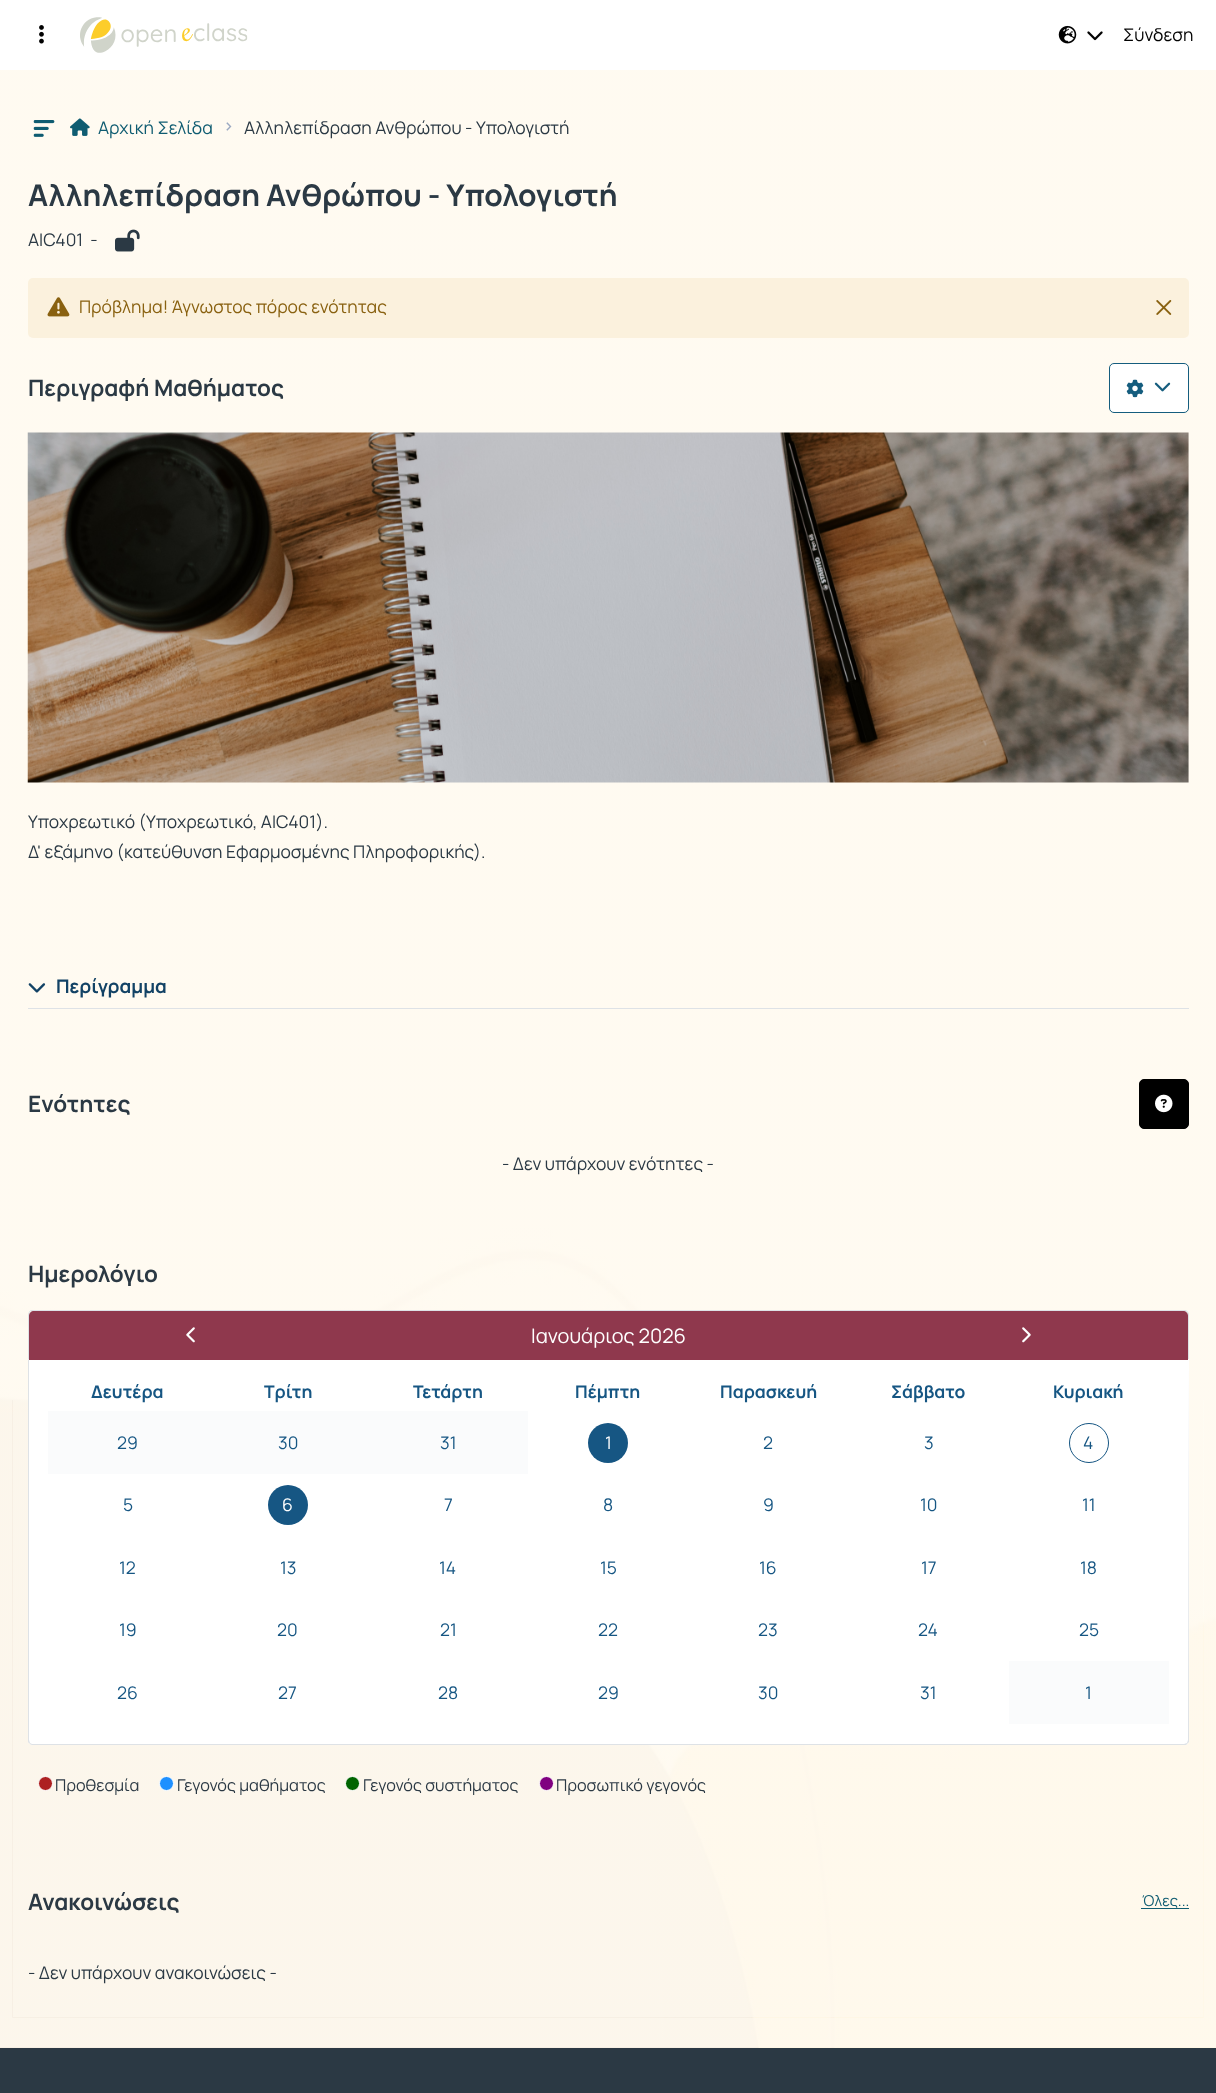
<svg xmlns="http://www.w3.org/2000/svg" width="1216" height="2093">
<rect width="100%" height="100%" fill="#fff"/>
<image x="0" y="70" width="1216" height="1978" href="media/1.png"/>
<image x="39" y="25" width="5" height="19" href="media/2.png"/>
<image x="80" y="17" width="168" height="36" href="media/3.png"/>
<image x="1058" y="25" width="19" height="19" href="media/4.png"/>
<image x="1087" y="31" width="16" height="10" href="media/5.png"/>
<text x="1123" y="41" style="font-family:Manrope;font-size:17.5px;fill:#020202">Σύνδεση</text>
<image x="0" y="2047" width="1216" height="1" href="media/6.png"/>
<image x="12" y="1400" width="1192" height="618" href="media/7.png"/>
<image x="33" y="120" width="22" height="17" href="media/8.png"/>
<image x="70" y="118" width="20" height="18" href="media/9.png"/>
<text x="98" y="134" style="font-family:Manrope;font-size:17.5px;fill:#0f5c71">Αρχική Σελίδα</text>
<text x="223" y="132" style="font-family:Manrope;font-size:17.5px;font-weight:500;fill:#9ba9c1">&gt;</text>
<text x="244" y="134" style="font-family:Manrope;font-size:17.5px;fill:#2b3944">Αλληλεπίδραση Ανθρώπου - Υπολογιστή</text>
<text x="28" y="206" style="font-family:Manrope;font-size:30px;font-weight:bold;fill:#2b3944">Αλληλεπίδραση Ανθρώπου - Υπολογιστή</text>
<text x="28" y="246" style="font-family:Manrope;font-size:17.5px;fill:#2b3944" xml:space="preserve">AIC401  -</text>
<image x="115" y="229" width="25" height="23" href="media/10.png"/>
<rect x="28" y="278" width="1161" height="60" rx="5" fill="#fbf1dd"/>
<image x="47" y="297" width="23" height="20" href="media/11.png"/>
<text x="79" y="313" style="font-family:Manrope;font-size:17.5px;fill:#896110">Πρόβλημα! Άγνωστος πόρος ενότητας</text>
<image x="1156" y="300" width="16" height="15" href="media/12.png"/>
<text x="28" y="396" style="font-family:Manrope;font-size:22.5px;font-weight:bold;fill:#2b3944">Περιγραφή Μαθήματος</text>
<rect x="1109.5" y="363.5" width="79" height="49" rx="4.5" fill="#fff" stroke="#155d7e"/>
<image x="1126" y="379" width="18" height="19" href="media/13.png"/>
<image x="1154" y="382" width="17" height="10" href="media/14.png"/>
<image x="27" y="432" width="1162" height="351" href="media/15.png"/>
<text x="28" y="828" style="font-family:Manrope;font-size:17.5px;fill:#2b3944">Υποχρεωτικό (Υποχρεωτικό, AIC401).</text>
<text x="28" y="858" style="font-family:Manrope;font-size:17.5px;fill:#2b3944">Δ' εξάμηνο (κατεύθυνση Εφαρμοσμένης Πληροφορικής).</text>
<rect x="28" y="1008" width="1161" height="1" fill="#dee2e6"/>
<image x="28" y="983" width="18" height="10" href="media/16.png"/>
<text x="56" y="993" style="font-family:Manrope;font-size:18.75px;font-weight:bold;fill:#124265">Περίγραμμα</text>
<text x="28" y="1112" style="font-family:Manrope;font-size:22.5px;font-weight:bold;fill:#2b3944">Ενότητες</text>
<rect x="1139.5" y="1079.5" width="49" height="49" rx="4.5" fill="#000" stroke="#000"/>
<image x="1155" y="1094" width="18" height="19" href="media/17.png"/>
<text x="502" y="1170" style="font-family:Manrope;font-size:17.5px;fill:#2b3944">- Δεν υπάρχουν ενότητες -</text>
<text x="28" y="1282" style="font-family:Manrope;font-size:22.5px;font-weight:bold;fill:#2b3944">Ημερολόγιο</text>
<path d="M32 1310h1152c3 0 5 2 5 5v45h-1161v-45c0-3 2-5 4-5zm0 1h1152c2 0 4 2 4 4v45h-1159v-45c0-2 1-4 3-4z" fill="#dee2e6" fill-rule="evenodd"/>
<path d="M28 1359h1161v381c0 3-2 5-5 5h-1151c-3 0-5-2-5-5z" fill="#fff"/>
<path d="M28 1359v381c0 1 0 3 1 3h1l-1-3v-380z" fill="#dee2e6"/>
<path d="M34 1311h1149c3 0 5 2 5 5v44h-1159v-44c0-3 2-5 5-5z" fill="#8f384d"/>
<image x="186" y="1327" width="9" height="16" href="media/18.png"/>
<text x="531" y="1343" style="font-family:Manrope;font-size:20px;fill:#fff">Ιανουάριος 2026</text>
<image x="1022" y="1327" width="9" height="16" href="media/19.png"/>
<path d="M1189 1742l-2 2v-1l1-3v-380v-1z" fill="#dee2e6"/>
<path d="M32 1745h1152c1 0 3 0 3-1v-1l-3 1h-1152l-2-1h-1c1 1 2 2 3 2z" fill="#dee2e6"/>
<text x="91" y="1398" style="font-family:Manrope;font-size:17.5px;font-weight:bold;fill:#165683">Δευτέρα</text>
<text x="264" y="1398" style="font-family:Manrope;font-size:17.5px;font-weight:bold;fill:#165683">Τρίτη</text>
<text x="413" y="1398" style="font-family:Manrope;font-size:17.5px;font-weight:bold;fill:#165683">Τετάρτη</text>
<text x="575" y="1398" style="font-family:Manrope;font-size:17.5px;font-weight:bold;fill:#165683">Πέμπτη</text>
<text x="720" y="1398" style="font-family:Manrope;font-size:17.5px;font-weight:bold;fill:#165683">Παρασκευή</text>
<text x="891" y="1398" style="font-family:Manrope;font-size:17.5px;font-weight:bold;fill:#165683">Σάββατο</text>
<text x="1053" y="1398" style="font-family:Manrope;font-size:17.5px;font-weight:bold;fill:#165683">Κυριακή</text>
<rect x="48" y="1411" width="480" height="63" fill="#fafbfc"/>
<text x="117" y="1449" style="font-family:Manrope;font-size:17.5px;fill:#165683">29</text>
<text x="278" y="1449" style="font-family:Manrope;font-size:17.5px;fill:#165683">30</text>
<text x="440" y="1449" style="font-family:Manrope;font-size:17.5px;fill:#165683">31</text>
<circle cx="608" cy="1443" r="20" fill="#165683"/>
<text x="605" y="1449" style="font-family:Manrope;font-size:17.5px;fill:#fff">1</text>
<text x="763" y="1449" style="font-family:Manrope;font-size:17.5px;fill:#165683">2</text>
<text x="924" y="1449" style="font-family:Manrope;font-size:17.5px;fill:#165683">3</text>
<circle cx="1089" cy="1443" r="19.5" fill="none" stroke="#165683"/>
<text x="1083" y="1449" style="font-family:Manrope;font-size:17.5px;fill:#165683">4</text>
<text x="123" y="1511" style="font-family:Manrope;font-size:17.5px;fill:#165683">5</text>
<circle cx="288" cy="1505" r="20" fill="#165683"/>
<text x="282" y="1511" style="font-family:Manrope;font-size:17.5px;fill:#fff">6</text>
<text x="444" y="1511" style="font-family:Manrope;font-size:17.5px;fill:#165683">7</text>
<text x="603" y="1511" style="font-family:Manrope;font-size:17.5px;fill:#165683">8</text>
<text x="763" y="1511" style="font-family:Manrope;font-size:17.5px;fill:#165683">9</text>
<text x="920" y="1511" style="font-family:Manrope;font-size:17.5px;fill:#165683">10</text>
<text x="1082" y="1511" style="font-family:Manrope;font-size:17.5px;fill:#165683">11</text>
<text x="119" y="1574" style="font-family:Manrope;font-size:17.5px;fill:#165683">12</text>
<text x="280" y="1574" style="font-family:Manrope;font-size:17.5px;fill:#165683">13</text>
<text x="439" y="1574" style="font-family:Manrope;font-size:17.5px;fill:#165683">14</text>
<text x="600" y="1574" style="font-family:Manrope;font-size:17.5px;fill:#165683">15</text>
<text x="759" y="1574" style="font-family:Manrope;font-size:17.5px;fill:#165683">16</text>
<text x="921" y="1574" style="font-family:Manrope;font-size:17.5px;fill:#165683">17</text>
<text x="1080" y="1574" style="font-family:Manrope;font-size:17.5px;fill:#165683">18</text>
<text x="119" y="1636" style="font-family:Manrope;font-size:17.5px;fill:#165683">19</text>
<text x="277" y="1636" style="font-family:Manrope;font-size:17.5px;fill:#165683">20</text>
<text x="440" y="1636" style="font-family:Manrope;font-size:17.5px;fill:#165683">21</text>
<text x="598" y="1636" style="font-family:Manrope;font-size:17.5px;fill:#165683">22</text>
<text x="758" y="1636" style="font-family:Manrope;font-size:17.5px;fill:#165683">23</text>
<text x="918" y="1636" style="font-family:Manrope;font-size:17.5px;fill:#165683">24</text>
<text x="1079" y="1636" style="font-family:Manrope;font-size:17.5px;fill:#165683">25</text>
<text x="117" y="1699" style="font-family:Manrope;font-size:17.5px;fill:#165683">26</text>
<text x="278" y="1699" style="font-family:Manrope;font-size:17.5px;fill:#165683">27</text>
<text x="438" y="1699" style="font-family:Manrope;font-size:17.5px;fill:#165683">28</text>
<text x="598" y="1699" style="font-family:Manrope;font-size:17.5px;fill:#165683">29</text>
<text x="758" y="1699" style="font-family:Manrope;font-size:17.5px;fill:#165683">30</text>
<text x="920" y="1699" style="font-family:Manrope;font-size:17.5px;fill:#165683">31</text>
<rect x="1009" y="1661" width="160" height="63" fill="#fafbfc"/>
<text x="1085" y="1699" style="font-family:Manrope;font-size:17.5px;fill:#165683">1</text>
<circle cx="45.5" cy="1783.5" r="7" fill="#ad2121" stroke="#fff"/>
<text x="55" y="1791" style="font-family:Manrope;font-size:16.25px;fill:#2b3944">Προθεσμία</text>
<circle cx="166.5" cy="1783.5" r="7" fill="#1e90ff" stroke="#fff"/>
<text x="177" y="1791" style="font-family:Manrope;font-size:16.25px;fill:#2b3944">Γεγονός μαθήματος</text>
<circle cx="352.5" cy="1783.5" r="7" fill="#006400" stroke="#fff"/>
<text x="363" y="1791" style="font-family:Manrope;font-size:16.25px;fill:#2b3944">Γεγονός συστήματος</text>
<circle cx="546.5" cy="1783.5" r="7" fill="#800080" stroke="#fff"/>
<text x="556" y="1791" style="font-family:Manrope;font-size:16.25px;fill:#2b3944">Προσωπικό γεγονός</text>
<text x="28" y="1910" style="font-family:Manrope;font-size:22.5px;font-weight:bold;fill:#2b3944">Ανακοινώσεις</text>
<text x="1142" y="1906" style="font-family:Manrope;font-size:15px;fill:#0f5c71">Όλες...</text>
<rect x="1141" y="1908" width="48" height="1" fill="#0f5c71"/>
<text x="28" y="1979" style="font-family:Manrope;font-size:17.5px;fill:#2b3944">- Δεν υπάρχουν ανακοινώσεις -</text>
<rect y="2048" width="1216" height="45" fill="#2b3944"/>
</svg>
